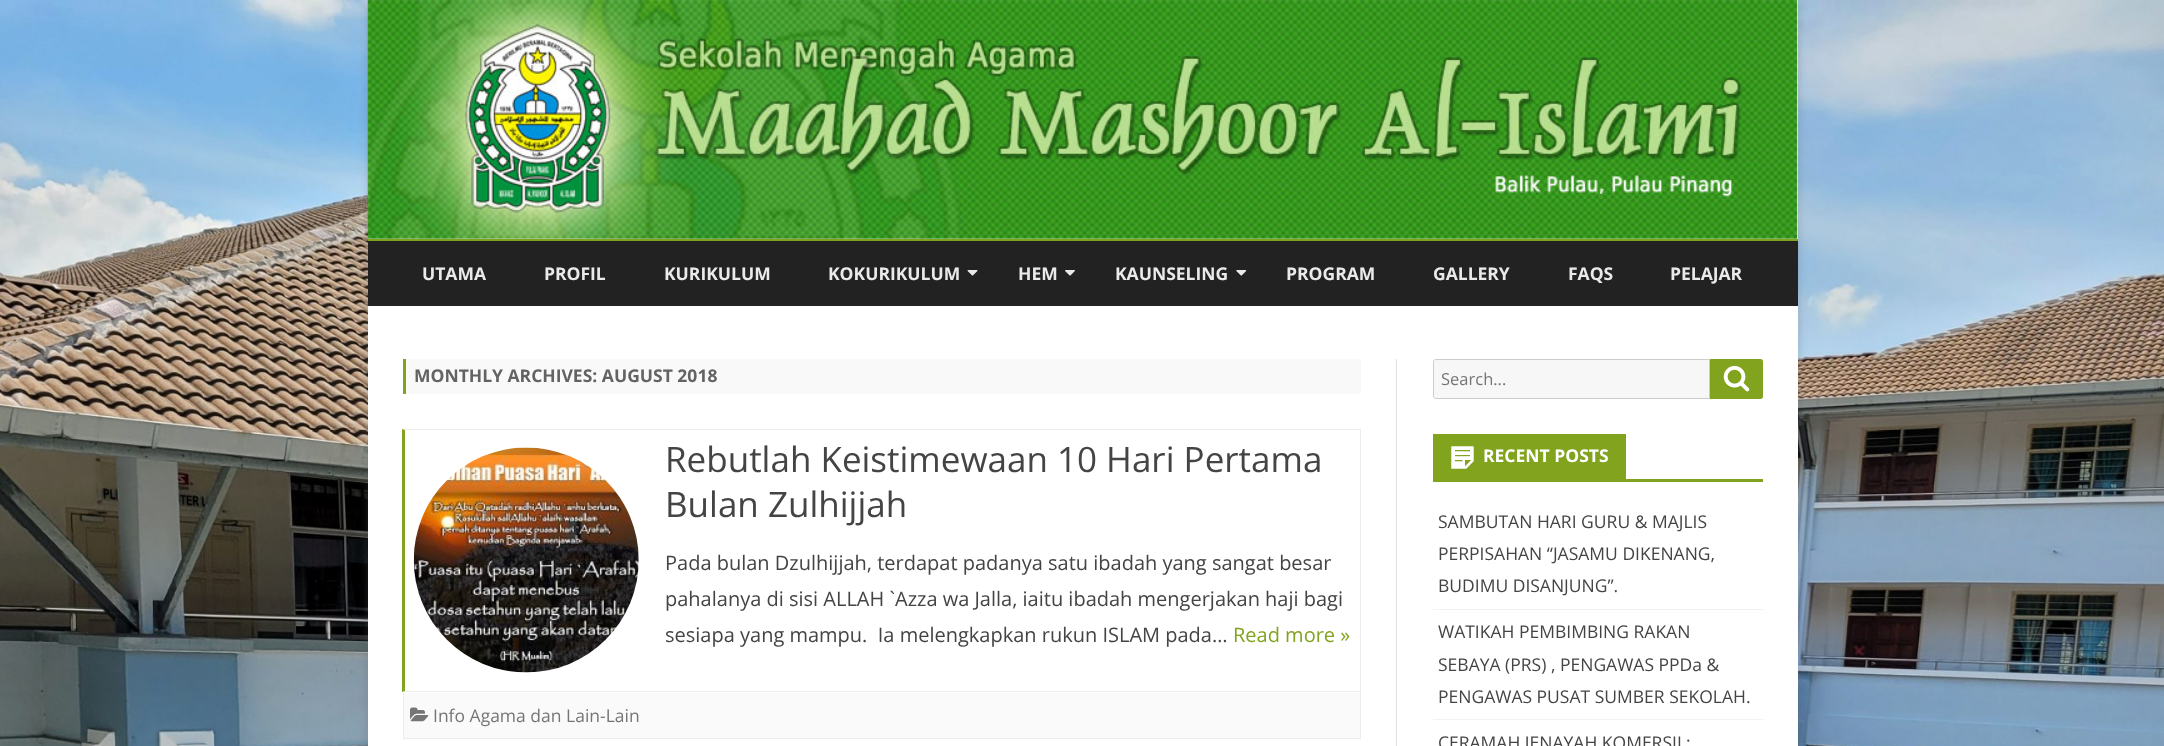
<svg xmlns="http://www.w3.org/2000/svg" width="2164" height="746">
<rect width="100%" height="100%" fill="#fff"/>
<image x="0" y="0" width="2164" height="746" href="media/1.png"/>
<rect x="368" y="3" width="1430" height="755" fill="#6464644d" filter="blur(4px)"/>
<rect x="368" width="1430" height="746" fill="#fff"/>
<image x="367" y="0" width="1431" height="239" href="media/2.png"/>
<rect x="368" y="239" width="1430" height="2" fill="#82a31d"/>
<rect x="368" y="241" width="1430" height="65" fill="#222"/>
<text x="422" y="280" style="font-family:Open Sans;font-size:17.5px;font-weight:bold;fill:#eaeaea">UTAMA</text>
<text x="544" y="280" style="font-family:Open Sans;font-size:17.5px;font-weight:bold;fill:#eaeaea">PROFIL</text>
<text x="664" y="280" style="font-family:Open Sans;font-size:17.5px;font-weight:bold;fill:#eaeaea">KURIKULUM</text>
<text x="828" y="280" style="font-family:Open Sans;font-size:17.5px;font-weight:bold;fill:#eaeaea">KOKURIKULUM</text>
<image x="967" y="270" width="11" height="6" href="media/3.png"/>
<text x="1018" y="280" style="font-family:Open Sans;font-size:17.5px;font-weight:bold;fill:#eaeaea">HEM</text>
<image x="1065" y="270" width="10" height="6" href="media/4.png"/>
<text x="1115" y="280" style="font-family:Open Sans;font-size:17.5px;font-weight:bold;fill:#eaeaea">KAUNSELING</text>
<image x="1236" y="270" width="11" height="6" href="media/5.png"/>
<text x="1286" y="280" style="font-family:Open Sans;font-size:17.5px;font-weight:bold;fill:#eaeaea">PROGRAM</text>
<text x="1433" y="280" style="font-family:Open Sans;font-size:17.5px;font-weight:bold;fill:#eaeaea">GALLERY</text>
<text x="1568" y="280" style="font-family:Open Sans;font-size:17.5px;font-weight:bold;fill:#eaeaea">FAQS</text>
<text x="1670" y="280" style="font-family:Open Sans;font-size:17.5px;font-weight:bold;fill:#eaeaea">PELAJAR</text>
<rect x="1396" y="359" width="1" height="387" fill="#e0e0e0"/>
<rect x="406" y="359" width="955" height="35" fill="#f9f9f9"/>
<rect x="403" y="359" width="3" height="35" fill="#82a31d"/>
<text x="414" y="382" style="font-family:Open Sans;font-size:17.5px;font-weight:bold;fill:#636363">MONTHLY ARCHIVES: AUGUST 2018</text>
<path d="M402 429h959l-1 1h-955z" fill="#ededed"/>
<rect x="1360" y="429" width="1" height="264" fill="#ededed"/>
<path d="M1361 692h-959l3-1h955z" fill="#ededed"/>
<path d="M402 692v-263l3 1v261z" fill="#82a31d"/>
<image x="413" y="447" width="226" height="226" href="media/6.png"/>
<text x="665" y="472" style="font-family:Open Sans;font-size:35px;fill:#444">Rebutlah Keistimewaan 10 Hari Pertama</text>
<text x="665" y="517" style="font-family:Open Sans;font-size:35px;fill:#444">Bulan Zulhijjah</text>
<text x="665" y="570" style="font-family:Open Sans;font-size:20px;fill:#444">Pada bulan Dzulhijjah, terdapat padanya satu ibadah yang sangat besar</text>
<text x="665" y="606" style="font-family:Open Sans;font-size:20px;fill:#444">pahalanya di sisi ALLAH `Azza wa Jalla, iaitu ibadah mengerjakan haji bagi</text>
<text x="665" y="642" style="font-family:Open Sans;font-size:20px;fill:#444" xml:space="preserve">sesiapa yang mampu.  Ia melengkapkan rukun ISLAM pada…</text>
<text x="1233" y="642" style="font-family:Open Sans;font-size:20px;fill:#82a31d">Read more »</text>
<rect x="404" y="693" width="956" height="45" fill="#fafafa"/>
<rect x="1360" y="693" width="1" height="46" fill="#ededed"/>
<rect x="403" y="738" width="958" height="1" fill="#ededed"/>
<rect x="403" y="693" width="1" height="46" fill="#ededed"/>
<image x="410" y="707" width="19" height="15" href="media/7.png"/>
<text x="433" y="722" style="font-family:Open Sans;font-size:17.5px;fill:#757575">Info Agama dan Lain-Lain</text>
<path d="M1435.5 359.5h274v39h-274c-1 0-2-1-2-2v-35c0-1 1-2 2-2z" fill="#f7f7f7" stroke="#ccc"/>
<text x="1441" y="385" style="font-family:Open Sans;font-size:16.5px;fill:#757575">Search...</text>
<path d="M1710 359h50.5c1.5 0 2.5 1 2.5 2.5v35c0 1.5-1 2.5-2.5 2.5h-50.5z" fill="#82a31d"/>
<image x="1723" y="365" width="27" height="27" href="media/8.png"/>
<rect x="1433" y="479" width="330" height="3" fill="#82a31d"/>
<rect x="1433" y="434" width="193" height="45" fill="#82a31d"/>
<image x="1451" y="446" width="23" height="23" href="media/9.png"/>
<text x="1483" y="462" style="font-family:Open Sans;font-size:17.5px;font-weight:bold;fill:#fff">RECENT POSTS</text>
<rect x="1433" y="609" width="330" height="1" fill="#f2f2f2"/>
<text x="1438" y="528" style="font-family:Open Sans;font-size:17.5px;fill:#444">SAMBUTAN HARI GURU &amp; MAJLIS</text>
<text x="1438" y="560" style="font-family:Open Sans;font-size:17.5px;fill:#444">PERPISAHAN “JASAMU DIKENANG,</text>
<text x="1438" y="592" style="font-family:Open Sans;font-size:17.5px;fill:#444">BUDIMU DISANJUNG”.</text>
<rect x="1433" y="719" width="330" height="1" fill="#f2f2f2"/>
<text x="1438" y="638" style="font-family:Open Sans;font-size:17.5px;fill:#444">WATIKAH PEMBIMBING RAKAN</text>
<text x="1438" y="671" style="font-family:Open Sans;font-size:17.5px;fill:#444">SEBAYA (PRS) , PENGAWAS PPDa &amp;</text>
<text x="1438" y="703" style="font-family:Open Sans;font-size:17.5px;fill:#444">PENGAWAS PUSAT SUMBER SEKOLAH.</text>
<text x="1438" y="749" style="font-family:Open Sans;font-size:17.5px;fill:#444">CERAMAH JENAYAH KOMERSIL:</text>
</svg>
